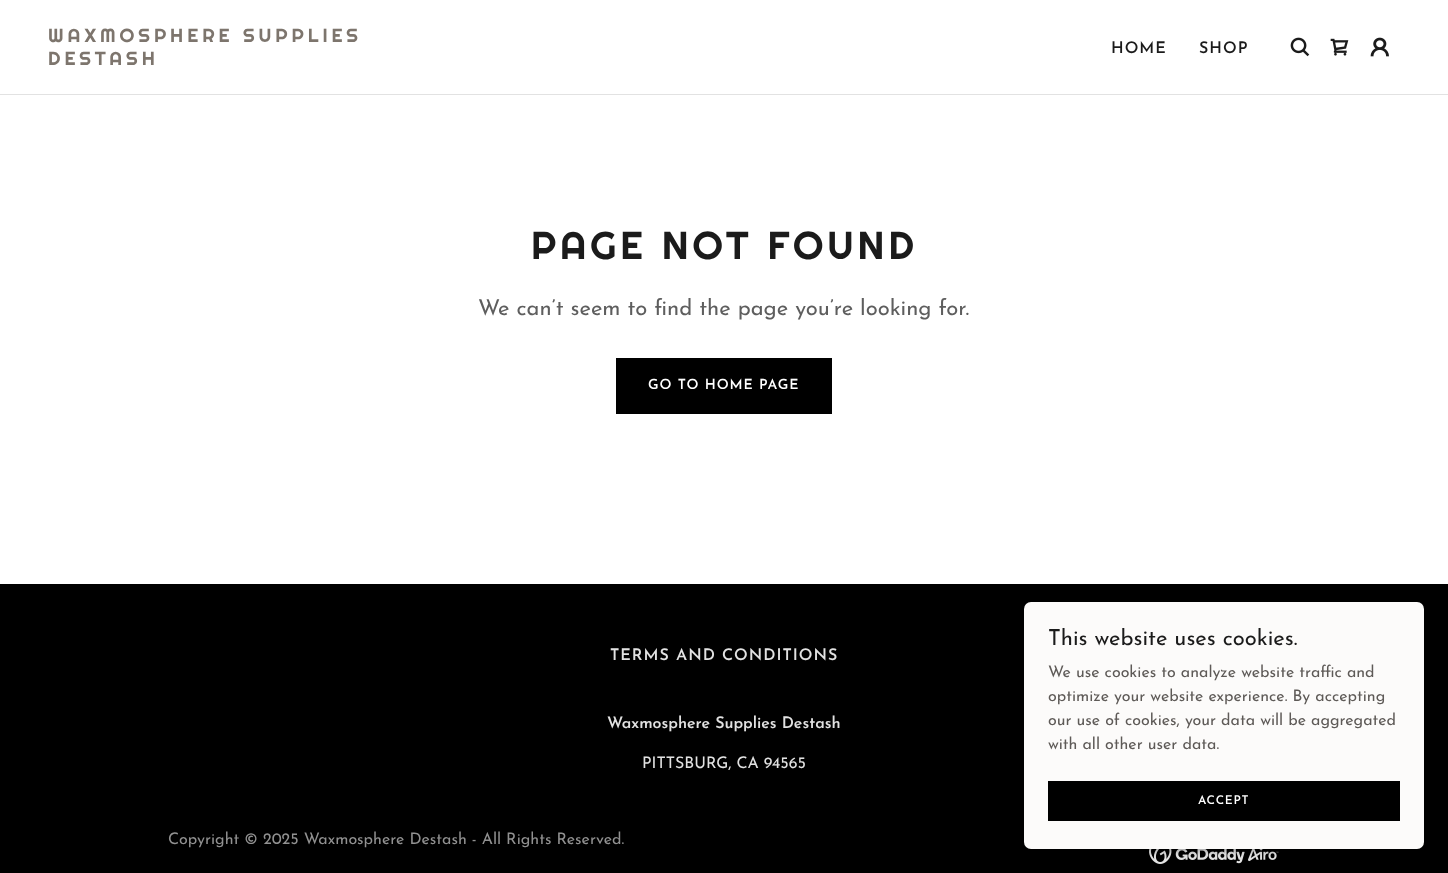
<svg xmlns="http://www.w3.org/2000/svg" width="1448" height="873">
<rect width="100%" height="100%" fill="#000"/>
<rect width="1448" height="94" fill="#fff"/>
<text x="48" y="42" style="font-family:Righteous;font-size:19px;letter-spacing:4px;fill:#7d756d">WAXMOSPHERE SUPPLIES</text>
<text x="48" y="65" style="font-family:Righteous;font-size:19px;letter-spacing:4px;fill:#7d756d">DESTASH</text>
<text x="1111" y="53" style="font-family:Josefin Sans;font-size:16px;font-weight:600;letter-spacing:1px;fill:#1b1b1b">HOME</text>
<text x="1199" y="53" style="font-family:Josefin Sans;font-size:16px;font-weight:600;letter-spacing:1px;fill:#1b1b1b">SHOP</text>
<image x="1290" y="37" width="20" height="20" href="media/1.png"/>
<image x="1330" y="38" width="19" height="18" href="media/2.png"/>
<image x="1370" y="37" width="19" height="20" href="media/3.png"/>
<rect y="94" width="1448" height="1" fill="#e2e2e2"/>
<rect y="95" width="1448" height="489" fill="#fff"/>
<text x="531" y="259" style="font-family:Righteous;font-size:39px;letter-spacing:4px;fill:#1b1b1b">PAGE NOT FOUND</text>
<text x="478" y="315" style="font-family:Josefin Sans;font-size:22px;fill:#5e5e5e">We can’t seem to find the page you’re looking for.</text>
<rect x="616" y="358" width="216" height="56" fill="#000"/>
<text x="648" y="389" style="font-family:Josefin Sans;font-size:14px;font-weight:600;letter-spacing:0.9px;fill:#fff">GO TO HOME PAGE</text>
<text x="610" y="660" style="font-family:Josefin Sans;font-size:16px;font-weight:600;letter-spacing:1px;fill:#e2e2e2">TERMS AND CONDITIONS</text>
<text x="607" y="728" style="font-family:Josefin Sans;font-size:16px;font-weight:600;fill:#e2e2e2">Waxmosphere Supplies Destash</text>
<text x="642" y="768" style="font-family:Josefin Sans;font-size:16px;fill:#e2e2e2">PITTSBURG, CA 94565</text>
<text x="168" y="844" style="font-family:Josefin Sans;font-size:16px;fill:#919191">Copyright © 2025 Waxmosphere Destash - All Rights Reserved.</text>
<image x="1149" y="849" width="130" height="15" href="media/4.png"/>
<rect x="1024" y="604" width="400" height="247" rx="7" fill="#0000004d" filter="blur(3px)"/>
<rect x="1024" y="602" width="400" height="247" rx="7" fill="#fcfbfa"/>
<text x="1048" y="645" style="font-family:Josefin Sans;font-size:22px;fill:#1b1b1b">This website uses cookies.</text>
<text x="1048" y="677" style="font-family:Josefin Sans;font-size:16px;fill:#5e5a57">We use cookies to analyze website traffic and</text>
<text x="1048" y="701" style="font-family:Josefin Sans;font-size:16px;fill:#5e5a57">optimize your website experience. By accepting</text>
<text x="1048" y="725" style="font-family:Josefin Sans;font-size:16px;fill:#5e5a57">our use of cookies, your data will be aggregated</text>
<text x="1048" y="749" style="font-family:Josefin Sans;font-size:16px;fill:#5e5a57">with all other user data.</text>
<rect x="1048" y="781" width="352" height="40" fill="#000"/>
<text x="1198" y="804" style="font-family:Josefin Sans;font-size:12px;font-weight:600;letter-spacing:0.75px;fill:#fff">ACCEPT</text>
</svg>
